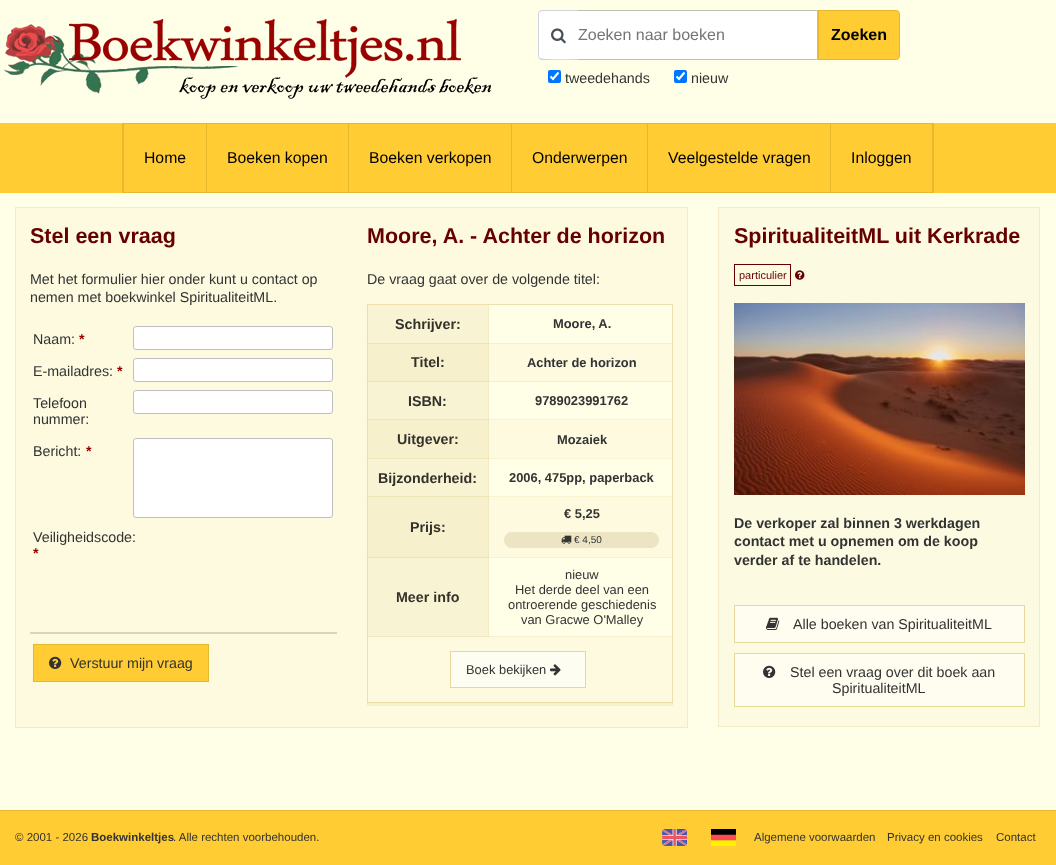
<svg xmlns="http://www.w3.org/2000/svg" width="1056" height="865">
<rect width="100%" height="100%" fill="#ffffe8"/>
<image x="3" y="19" width="488" height="80" href="media/1.png"/>
<path d="M542 10h36v50h-36c-2 0-4-2-4-4v-42c0-2 2-4 4-4z" fill="#fff"/>
<path d="M542 10h36v50h-36c-2 0-4-2-4-4v-42c0-2 2-4 4-4zm0 1h36v48c-5 0-36 1-38-1l-1-1v-44l1-1z" fill="#ced4da" fill-rule="evenodd"/>
<image x="551" y="28" width="15" height="16" href="media/2.png"/>
<rect x="578" y="11" width="239" height="48" fill="#fff"/>
<path d="M578 10h240l-1 1h-239z" fill="#bfbfae"/>
<path d="M818 10v50l-1-1v-48z" fill="#00000040"/>
<path d="M818 60h-240v-1h239z" fill="#00000040"/>
<text x="578" y="40" style="font-family:Liberation Sans;font-size:16px;fill:#757575">Zoeken naar boeken</text>
<path d="M818 10h78c2 0 4 2 4 4v42c0 2-2 4-4 4h-78z" fill="#fc3"/>
<path d="M818.5 10.5h77.5c2 0 3.5 1.5 3.5 3.5v42c0 2-1.5 3.5-3.5 3.5h-77.5z" fill="none" stroke="#0000001a"/>
<text x="831" y="40" style="font-family:Liberation Sans;font-size:16px;font-weight:bold;fill:#000">Zoeken</text>
<rect x="548" y="70" width="13" height="13" rx="2" fill="#0075ff"/>
<path d="M550.5 76.5l2.5 2.5l5.5-6.5" fill="none" stroke="#fff" stroke-width="2.1"/>
<text x="565" y="83" style="font-family:Liberation Sans;font-size:14.25px;fill:#333">tweedehands</text>
<rect x="674" y="70" width="13" height="13" rx="2" fill="#0075ff"/>
<path d="M676.5 76.5l2.5 2.5l5.5-6.5" fill="none" stroke="#fff" stroke-width="2.1"/>
<text x="691" y="83" style="font-family:Liberation Sans;font-size:14.25px;fill:#333">nieuw</text>
<rect y="123" width="1056" height="70" fill="#fc3"/>
<rect x="122.5" y="123.5" width="811" height="69" fill="none" stroke="#e6b82e"/>
<rect x="206" y="124" width="1" height="68" fill="#e6b82e"/>
<rect x="123" y="124" width="1" height="68" fill="#e6b82e"/>
<text x="144" y="163" style="font-family:Liberation Sans;font-size:15.75px;fill:#000">Home</text>
<rect x="348" y="124" width="1" height="68" fill="#e6b82e"/>
<text x="227" y="163" style="font-family:Liberation Sans;font-size:15.75px;fill:#000">Boeken kopen</text>
<rect x="511" y="124" width="1" height="68" fill="#e6b82e"/>
<text x="369" y="163" style="font-family:Liberation Sans;font-size:15.75px;fill:#000">Boeken verkopen</text>
<rect x="647" y="124" width="1" height="68" fill="#e6b82e"/>
<text x="532" y="163" style="font-family:Liberation Sans;font-size:15.75px;fill:#000">Onderwerpen</text>
<rect x="830" y="124" width="1" height="68" fill="#e6b82e"/>
<text x="668" y="163" style="font-family:Liberation Sans;font-size:15.75px;fill:#000">Veelgestelde vragen</text>
<rect x="932" y="124" width="1" height="68" fill="#e6b82e"/>
<text x="851" y="163" style="font-family:Liberation Sans;font-size:15.75px;fill:#000">Inloggen</text>
<rect x="16" y="208" width="671" height="519" fill="#fdfae0"/>
<rect x="367" y="702" width="306" height="1" fill="#ebdda9"/>
<rect x="367" y="702" width="1" height="1" fill="#e9d8a0"/>
<rect x="672" y="702" width="1" height="1" fill="#e9d8a0"/>
<rect x="15.5" y="207.5" width="672" height="520" fill="none" stroke="#f3eac8"/>
<text x="30" y="243" style="font-family:Liberation Sans;font-size:21.5px;font-weight:bold;fill:#600">Stel een vraag</text>
<text x="30" y="284" style="font-family:Liberation Sans;font-size:14.25px;fill:#333">Met het formulier hier onder kunt u contact op</text>
<text x="30" y="302" style="font-family:Liberation Sans;font-size:14.25px;fill:#333">nemen met boekwinkel SpiritualiteitML.</text>
<text x="33" y="344" style="font-family:Liberation Sans;font-size:14.25px;fill:#333">Naam:</text>
<text x="79" y="344" style="font-family:Liberation Sans;font-size:14.25px;font-weight:bold;fill:#900">*</text>
<rect x="133" y="326" width="200" height="24" rx="3" fill="#fff"/>
<rect x="133.5" y="326.5" width="199" height="23" rx="2.5" fill="none" stroke="#00000040"/>
<text x="33" y="376" style="font-family:Liberation Sans;font-size:14.25px;fill:#333">E-mailadres:</text>
<text x="117" y="376" style="font-family:Liberation Sans;font-size:14.25px;font-weight:bold;fill:#900">*</text>
<rect x="133" y="358" width="200" height="24" rx="3" fill="#fff"/>
<rect x="133.5" y="358.5" width="199" height="23" rx="2.5" fill="none" stroke="#00000040"/>
<text x="33" y="408" style="font-family:Liberation Sans;font-size:14.25px;fill:#333">Telefoon</text>
<text x="33" y="424" style="font-family:Liberation Sans;font-size:14.25px;fill:#333">nummer:</text>
<rect x="133" y="390" width="200" height="24" rx="3" fill="#fff"/>
<rect x="133.5" y="390.5" width="199" height="23" rx="2.5" fill="none" stroke="#00000040"/>
<text x="33" y="456" style="font-family:Liberation Sans;font-size:14.25px;fill:#333">Bericht:</text>
<text x="86" y="456" style="font-family:Liberation Sans;font-size:14.25px;font-weight:bold;fill:#900">*</text>
<rect x="133" y="438" width="200" height="80" rx="3" fill="#fff"/>
<rect x="133.5" y="438.5" width="199" height="79" rx="2.5" fill="none" stroke="#00000040"/>
<text x="33" y="542" style="font-family:Liberation Sans;font-size:14.25px;fill:#333">Veiligheidscode:</text>
<text x="33" y="558" style="font-family:Liberation Sans;font-size:14.25px;font-weight:bold;fill:#900">*</text>
<rect x="30" y="632" width="307" height="2" fill="#d7d5be"/>
<rect x="33.5" y="644.5" width="175" height="37" fill="#fc3" stroke="#e6b82e"/>
<image x="49" y="656" width="13" height="13" href="media/3.png"/>
<text x="70" y="668" style="font-family:Liberation Sans;font-size:14.25px;fill:#333">Verstuur mijn vraag</text>
<text x="367" y="243" style="font-family:Liberation Sans;font-size:21.5px;font-weight:bold;fill:#600">Moore, A. - Achter de horizon</text>
<text x="367" y="284" style="font-family:Liberation Sans;font-size:14.25px;fill:#333">De vraag gaat over de volgende titel:</text>
<rect x="367" y="703" width="306" height="3" fill="#f7f0cc"/>
<rect x="367" y="304" width="306" height="1" fill="#ede0ae"/>
<rect x="488" y="304" width="1" height="1" fill="#ebdda9"/>
<rect x="367" y="304" width="1" height="1" fill="#e9d9a1"/>
<rect x="672" y="304" width="1" height="1" fill="#e9d9a1"/>
<rect x="489" y="305" width="183" height="38" fill="#ffffe8"/>
<rect x="672" y="305" width="1" height="38" fill="#eee1b0"/>
<rect x="368" y="305" width="120" height="38" fill="#f8f3d2"/>
<rect x="488" y="305" width="1" height="38" fill="#f3ebc2"/>
<rect x="367" y="305" width="1" height="38" fill="#ecdeaa"/>
<text x="395" y="329" style="font-family:Liberation Sans;font-size:14.25px;font-weight:bold;fill:#32312a">Schrijver:</text>
<text x="553" y="328" style="font-family:Liberation Sans;font-size:12.9px;font-weight:bold;fill:#333">Moore, A.</text>
<rect x="488" y="343" width="185" height="1" fill="#f7f0cd"/>
<rect x="488" y="381" width="185" height="1" fill="#f7f0cd"/>
<rect x="672" y="343" width="1" height="39" fill="#ede0ae"/>
<rect x="672" y="343" width="1" height="1" fill="#ebdda9"/>
<rect x="672" y="381" width="1" height="1" fill="#ebdda9"/>
<rect x="368" y="344" width="120" height="37" fill="#f7f0cd"/>
<rect x="367" y="343" width="122" height="1" fill="#f0e4b5"/>
<rect x="367" y="381" width="122" height="1" fill="#f0e4b5"/>
<rect x="488" y="343" width="1" height="39" fill="#f2e9bf"/>
<rect x="488" y="343" width="1" height="1" fill="#ebdca6"/>
<rect x="488" y="381" width="1" height="1" fill="#ebdca6"/>
<rect x="367" y="343" width="1" height="39" fill="#ecdda9"/>
<rect x="367" y="343" width="1" height="1" fill="#eadaa3"/>
<rect x="367" y="381" width="1" height="1" fill="#eadaa3"/>
<text x="411" y="367" style="font-family:Liberation Sans;font-size:14.25px;font-weight:bold;fill:#32312a">Titel:</text>
<text x="527" y="367" style="font-family:Liberation Sans;font-size:12.9px;font-weight:bold;fill:#333">Achter de horizon</text>
<rect x="489" y="382" width="183" height="37" fill="#ffffe8"/>
<rect x="488" y="419" width="185" height="1" fill="#f8f3d1"/>
<rect x="672" y="382" width="1" height="38" fill="#eee1b0"/>
<rect x="672" y="419" width="1" height="1" fill="#ecdeaa"/>
<rect x="368" y="382" width="120" height="37" fill="#f8f3d2"/>
<rect x="367" y="419" width="122" height="1" fill="#f0e5b8"/>
<rect x="488" y="382" width="1" height="38" fill="#f3ebc2"/>
<rect x="488" y="419" width="1" height="1" fill="#ebdca6"/>
<rect x="367" y="382" width="1" height="38" fill="#ecdeaa"/>
<rect x="367" y="419" width="1" height="1" fill="#eadba4"/>
<text x="408" y="406" style="font-family:Liberation Sans;font-size:14.25px;font-weight:bold;fill:#32312a">ISBN:</text>
<text x="535" y="405" style="font-family:Liberation Sans;font-size:12.9px;font-weight:bold;fill:#333">9789023991762</text>
<rect x="672" y="420" width="1" height="38" fill="#ede0ae"/>
<rect x="368" y="420" width="120" height="38" fill="#f7f0cd"/>
<rect x="488" y="420" width="1" height="38" fill="#f2e9bf"/>
<rect x="367" y="420" width="1" height="38" fill="#ecdda9"/>
<text x="397" y="444" style="font-family:Liberation Sans;font-size:14.25px;font-weight:bold;fill:#32312a">Uitgever:</text>
<text x="557" y="444" style="font-family:Liberation Sans;font-size:12.9px;font-weight:bold;fill:#333">Mozaiek</text>
<rect x="489" y="459" width="183" height="37" fill="#ffffe8"/>
<rect x="488" y="458" width="185" height="1" fill="#f8f3d1"/>
<rect x="488" y="496" width="185" height="1" fill="#f8f3d1"/>
<rect x="672" y="458" width="1" height="39" fill="#eee1b0"/>
<rect x="672" y="458" width="1" height="1" fill="#ecdeaa"/>
<rect x="672" y="496" width="1" height="1" fill="#ecdeaa"/>
<rect x="368" y="459" width="120" height="37" fill="#f8f3d2"/>
<rect x="367" y="458" width="122" height="1" fill="#f0e5b8"/>
<rect x="367" y="496" width="122" height="1" fill="#f0e5b8"/>
<rect x="488" y="458" width="1" height="39" fill="#f3ebc2"/>
<rect x="488" y="458" width="1" height="1" fill="#ebdca6"/>
<rect x="488" y="496" width="1" height="1" fill="#ebdca6"/>
<rect x="367" y="458" width="1" height="39" fill="#ecdeaa"/>
<rect x="367" y="458" width="1" height="1" fill="#eadba4"/>
<rect x="367" y="496" width="1" height="1" fill="#eadba4"/>
<text x="378" y="483" style="font-family:Liberation Sans;font-size:14.25px;font-weight:bold;fill:#32312a">Bijzonderheid:</text>
<text x="509" y="482" style="font-family:Liberation Sans;font-size:12.9px;font-weight:bold;fill:#333">2006, 475pp, paperback</text>
<rect x="672" y="497" width="1" height="60" fill="#ede0ae"/>
<rect x="368" y="497" width="120" height="60" fill="#f7f0cd"/>
<rect x="488" y="497" width="1" height="60" fill="#f2e9bf"/>
<rect x="367" y="497" width="1" height="60" fill="#ecdda9"/>
<text x="410" y="532" style="font-family:Liberation Sans;font-size:14.25px;font-weight:bold;fill:#32312a">Prijs:</text>
<text x="564" y="518" style="font-family:Liberation Sans;font-size:12.9px;font-weight:bold;fill:#333">€ 5,25</text>
<rect x="504" y="532" width="155" height="16" rx="8" fill="#ece4c3"/>
<image x="561" y="535" width="11" height="9" href="media/4.png"/>
<text x="574" y="543" style="font-family:Liberation Sans;font-size:10px;fill:#333">€ 4,50</text>
<rect x="489" y="558" width="183" height="78" fill="#ffffe8"/>
<rect x="488" y="557" width="185" height="1" fill="#f8f3d1"/>
<rect x="672" y="557" width="1" height="79" fill="#eee1b0"/>
<rect x="672" y="557" width="1" height="1" fill="#ecdeaa"/>
<rect x="368" y="558" width="120" height="78" fill="#f8f3d2"/>
<rect x="367" y="557" width="122" height="1" fill="#f0e5b8"/>
<rect x="488" y="557" width="1" height="79" fill="#f3ebc2"/>
<rect x="488" y="557" width="1" height="1" fill="#ebdca6"/>
<rect x="367" y="557" width="1" height="79" fill="#ecdeaa"/>
<rect x="367" y="557" width="1" height="1" fill="#eadba4"/>
<text x="396" y="602" style="font-family:Liberation Sans;font-size:14.25px;font-weight:bold;fill:#32312a">Meer info</text>
<text x="565" y="579" style="font-family:Liberation Sans;font-size:12.9px;fill:#333">nieuw</text>
<text x="515" y="594" style="font-family:Liberation Sans;font-size:12.9px;fill:#333">Het derde deel van een</text>
<text x="508" y="609" style="font-family:Liberation Sans;font-size:12.9px;fill:#333">ontroerende geschiedenis</text>
<text x="521" y="624" style="font-family:Liberation Sans;font-size:12.9px;fill:#333">van Gracwe O'Malley</text>
<rect x="367" y="636" width="122" height="1" fill="#f3e9c0"/>
<rect x="488" y="636" width="185" height="1" fill="#f7f0cd"/>
<rect x="488" y="636" width="1" height="1" fill="#ede0ae"/>
<rect x="367" y="636" width="1" height="66" fill="#ede0ae"/>
<rect x="367" y="636" width="1" height="1" fill="#ebdca6"/>
<rect x="672" y="636" width="1" height="66" fill="#ede0ae"/>
<rect x="672" y="636" width="1" height="1" fill="#ebdda9"/>
<rect x="450.5" y="651.5" width="135" height="36" fill="#fefdf1" stroke="#e8d79d"/>
<text x="466" y="674" style="font-family:Liberation Sans;font-size:12.9px;fill:#333">Boek bekijken</text>
<image x="550" y="664" width="11" height="12" href="media/5.png"/>
<rect x="718.5" y="207.5" width="321" height="519" fill="#fcfae0" stroke="#f3eac8"/>
<text x="734" y="243" style="font-family:Liberation Sans;font-size:21.5px;font-weight:bold;fill:#600">SpiritualiteitML uit Kerkrade</text>
<rect x="734.5" y="264.5" width="56" height="21" fill="none" stroke="#600"/>
<text x="739" y="279" style="font-family:Liberation Sans;font-size:11px;fill:#600">particulier</text>
<image x="795" y="270" width="10" height="10" href="media/6.png"/>
<image x="734" y="303" width="291" height="192" href="media/7.png"/>
<text x="734" y="528" style="font-family:Liberation Sans;font-size:14.25px;font-weight:bold;fill:#333">De verkoper zal binnen 3 werkdagen</text>
<text x="734" y="546" style="font-family:Liberation Sans;font-size:14.25px;font-weight:bold;fill:#333">contact met u opnemen om de koop</text>
<text x="734" y="565" style="font-family:Liberation Sans;font-size:14.25px;font-weight:bold;fill:#333">verder af te handelen.</text>
<rect x="734.5" y="605.5" width="290" height="37" fill="#fefdf0" stroke="#e8d79d"/>
<image x="766" y="617" width="14" height="13" href="media/8.png"/>
<text x="793" y="629" style="font-family:Liberation Sans;font-size:14.25px;fill:#333">Alle boeken van SpiritualiteitML</text>
<rect x="734.5" y="653.5" width="290" height="53" fill="#fefdf0" stroke="#e8d79d"/>
<image x="763" y="665" width="13" height="13" href="media/9.png"/>
<text x="790" y="677" style="font-family:Liberation Sans;font-size:14.25px;fill:#333">Stel een vraag over dit boek aan</text>
<text x="832" y="693" style="font-family:Liberation Sans;font-size:14.25px;fill:#333">SpiritualiteitML</text>
<rect y="811" width="1056" height="54" fill="#fc3"/>
<rect y="810" width="1056" height="1" fill="#e6b82e"/>
<text x="15" y="841" style="font-family:Liberation Sans;font-size:11.5px;fill:#333">© 2001 - 2026</text>
<text x="91" y="841" style="font-family:Liberation Sans;font-size:11.5px;font-weight:bold;fill:#333">Boekwinkeltjes</text>
<text x="173" y="841" style="font-family:Liberation Sans;font-size:11.5px;fill:#333">. Alle rechten voorbehouden.</text>
<image x="662" y="829" width="25" height="17" href="media/10.png"/>
<image x="711" y="829" width="25" height="17" href="media/11.png"/>
<text x="754" y="841" style="font-family:Liberation Sans;font-size:11.5px;fill:#333">Algemene voorwaarden</text>
<text x="887" y="841" style="font-family:Liberation Sans;font-size:11.5px;fill:#333">Privacy en cookies</text>
<text x="996" y="841" style="font-family:Liberation Sans;font-size:11.5px;fill:#333">Contact</text>
</svg>
